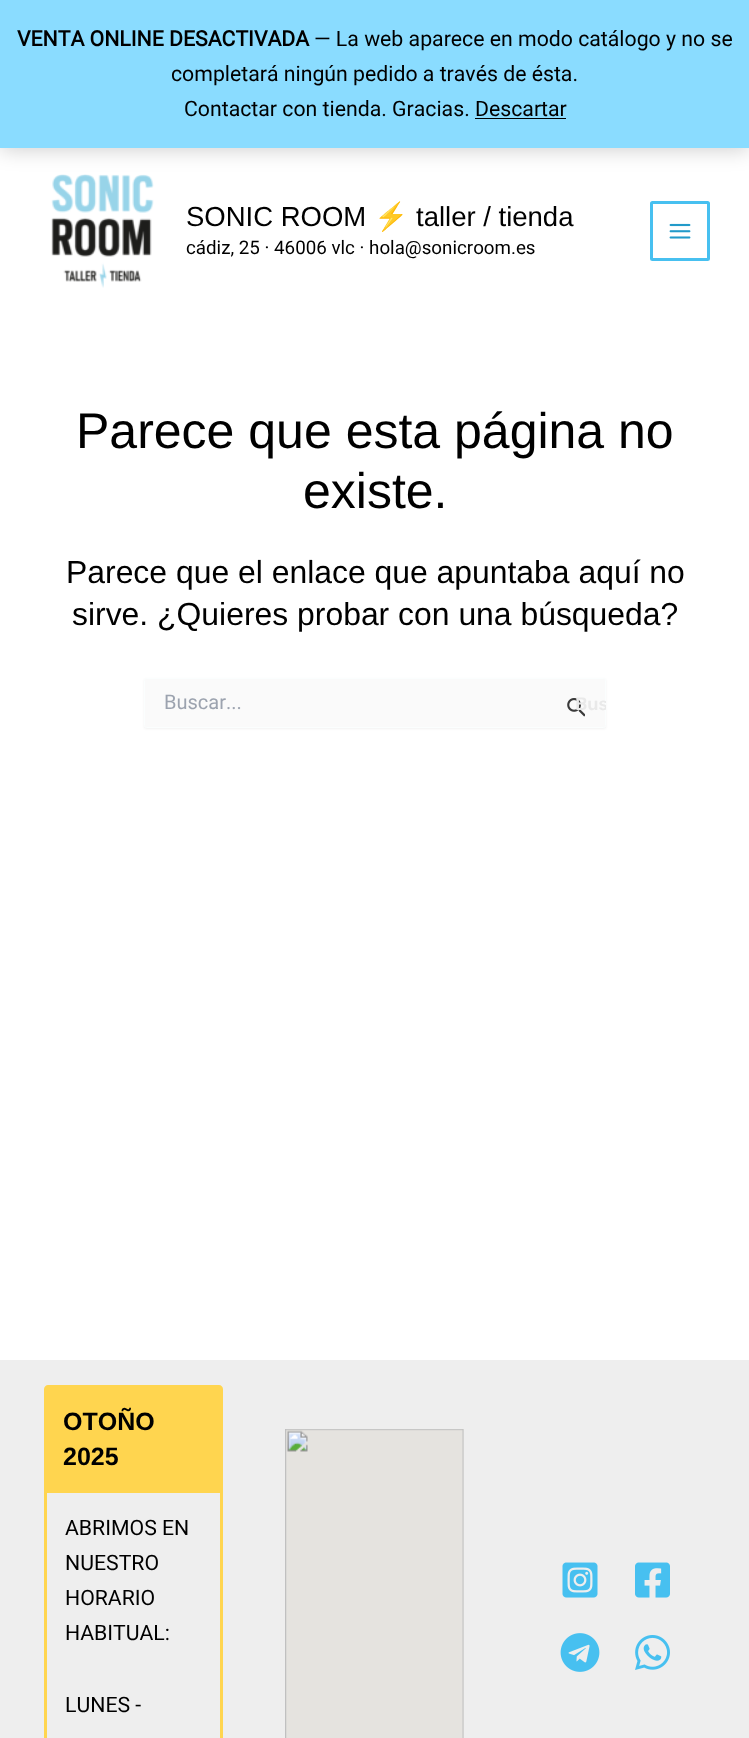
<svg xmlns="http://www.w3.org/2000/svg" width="749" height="1738">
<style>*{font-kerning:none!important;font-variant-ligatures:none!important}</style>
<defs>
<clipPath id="clip1"><rect x="550" y="678" width="56" height="55" rx="2.5"/></clipPath>
</defs>
<rect width="100%" height="100%" fill="#fff"/>
<image x="51" y="174" width="103" height="114" href="media/1.png"/>
<rect y="1" width="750" height="148" fill="#00000033" filter="blur(10.5px)"/>
<rect width="749" height="148" fill="#8adcff"/>
<text x="17" y="46" style="font-family:Roboto;font-size:21.25px;font-weight:bold;fill:#000">VENTA ONLINE DESACTIVADA</text>
<text x="314" y="46" style="font-family:Roboto;font-size:21.25px;fill:#000">— La web aparece en modo catálogo y no se</text>
<text x="171" y="81" style="font-family:Roboto;font-size:21.25px;fill:#000">completará ningún pedido a través de ésta.</text>
<text x="184" y="116" style="font-family:Roboto;font-size:21.25px;fill:#000">Contactar con tienda. Gracias. Descartar</text>
<rect x="475" y="118" width="91" height="1" fill="#000"/>
<text x="186" y="226" style="font-family:Liberation Sans;font-size:27.5px;fill:#000">SONIC ROOM</text>
<text x="374" y="226" style="font-family:Noto Color Emoji;font-size:27.5px;fill:#000">⚡</text>
<text x="416" y="226" style="font-family:Liberation Sans;font-size:27.5px;fill:#000">taller / tienda</text>
<text x="186" y="254" style="font-family:Roboto;font-size:18.75px;fill:#000">cádiz, 25 · 46006 vlc · hola@sonicroom.es</text>
<rect x="651.5" y="202.5" width="57" height="57" rx="1" fill="none" stroke="#47c0f0" stroke-width="3"/>
<image x="669" y="223" width="22" height="16" href="media/2.png"/>
<text x="76" y="448" style="font-family:Liberation Sans;font-size:50px;fill:#000">Parece que esta página no</text>
<text x="303" y="508" style="font-family:Liberation Sans;font-size:50px;fill:#000">existe.</text>
<text x="66" y="583" style="font-family:Liberation Sans;font-size:31.9px;fill:#000">Parece que el enlace que apuntaba aquí no</text>
<text x="72" y="625" style="font-family:Liberation Sans;font-size:31.9px;fill:#000">sirve. ¿Quieres probar con una búsqueda?</text>
<rect x="144" y="679" width="462" height="50" rx="2.5" fill="#0000000d" filter="blur(1px)"/>
<rect x="144.5" y="678.5" width="461" height="49" rx="2" fill="#fafafa" stroke="#fbfefe"/>
<text x="164" y="709" style="font-family:Roboto;font-size:20px;fill:#9ca3af">Buscar...</text>
<image x="567" y="698" width="18" height="19" href="media/3.png"/>
<g clip-path="url(#clip1)">
<text x="575" y="710" style="font-family:Rubik;font-size:18px;font-weight:500;fill:#e9e9e9">Bus</text>
</g>
<rect y="1360" width="749" height="378" fill="#eee"/>
<rect x="45.5" y="1490.5" width="176" height="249" fill="none" stroke="#ffd54f" stroke-width="3"/>
<path d="M48 1385h171c2 0 4 2 4 4v104h-179v-104c0-2 2-4 4-4z" fill="#ffd54f"/>
<text x="63" y="1430" style="font-family:Liberation Sans;font-size:25px;font-weight:bold;fill:#000">OTOÑO</text>
<text x="63" y="1465" style="font-family:Liberation Sans;font-size:25px;font-weight:bold;fill:#000">2025</text>
<text x="65" y="1535" style="font-family:Roboto;font-size:21.25px;fill:#000">ABRIMOS EN</text>
<text x="65" y="1570" style="font-family:Roboto;font-size:21.25px;fill:#000">NUESTRO</text>
<text x="65" y="1605" style="font-family:Roboto;font-size:21.25px;fill:#000">HORARIO</text>
<text x="65" y="1640" style="font-family:Roboto;font-size:21.25px;fill:#000">HABITUAL:</text>
<text x="65" y="1712" style="font-family:Roboto;font-size:21.25px;fill:#000">LUNES -</text>
<image x="285" y="1429" width="179" height="309" href="media/4.png"/>
<image x="562" y="1562" width="36" height="36" href="media/5.png"/>
<image x="635" y="1562" width="35" height="36" href="media/6.png"/>
<image x="560" y="1633" width="40" height="39" href="media/7.png"/>
<image x="635" y="1635" width="35" height="35" href="media/8.png"/>
</svg>
